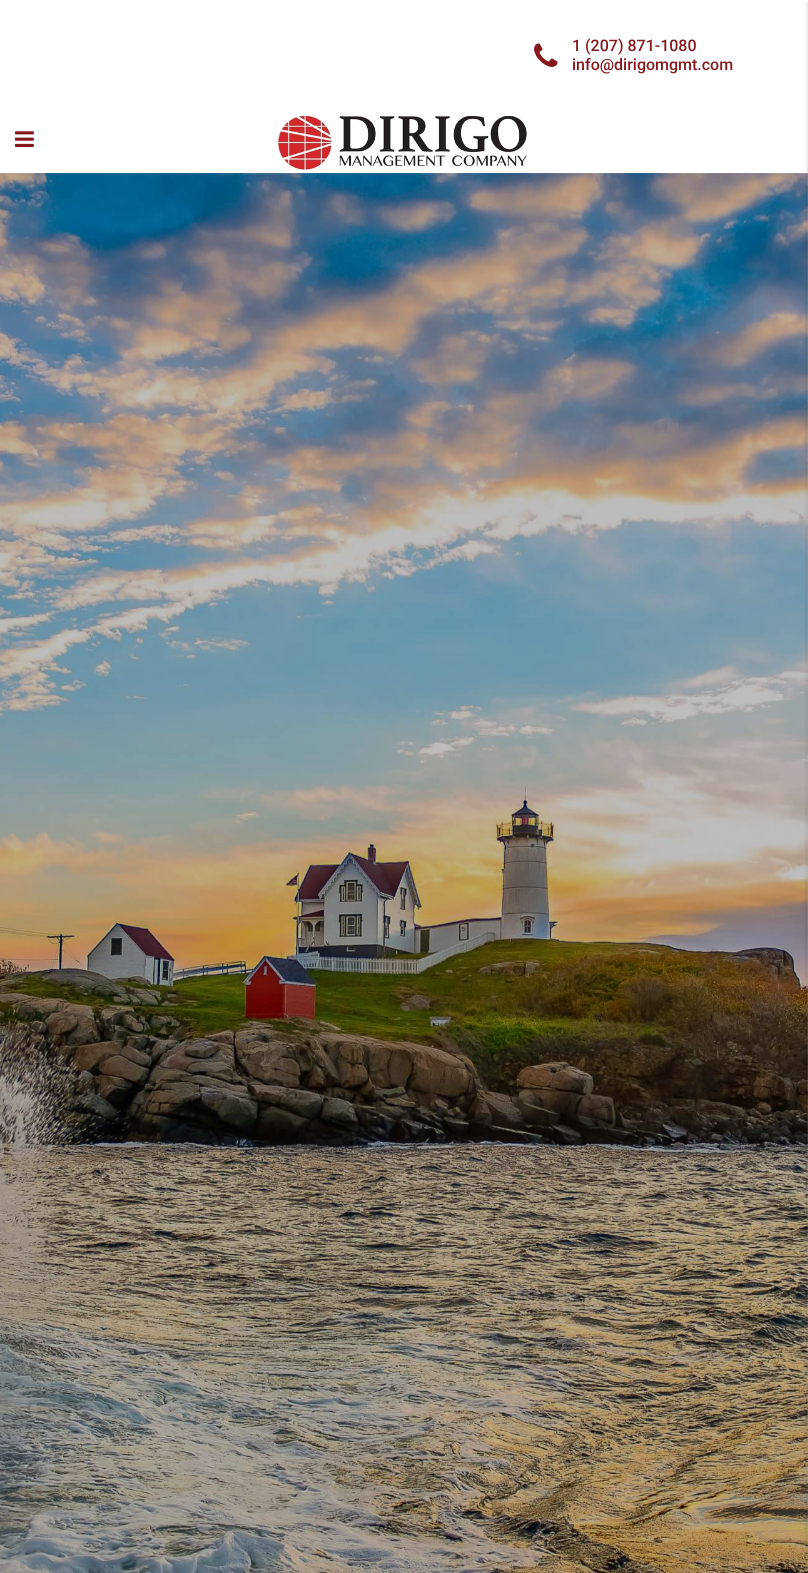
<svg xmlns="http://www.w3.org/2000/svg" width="808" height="1573">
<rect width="100%" height="100%" fill="#fff"/>
<image x="0" y="173" width="808" height="1400" href="media/1.png"/>
<rect x="808" y="2" width="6" height="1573" fill="#00000033" filter="blur(2px)"/>
<image x="534" y="43" width="24" height="24" href="media/2.png"/>
<text x="572" y="51" style="font-family:Roboto;font-size:16px;font-weight:500;fill:#85181d">1 (207) 871-1080</text>
<text x="572" y="70" style="font-family:Roboto;font-size:16px;font-weight:500;fill:#85181d">info@dirigomgmt.com</text>
<image x="15" y="131" width="19" height="16" href="media/3.png"/>
<image x="278" y="115" width="249" height="55" href="media/4.png"/>
</svg>
